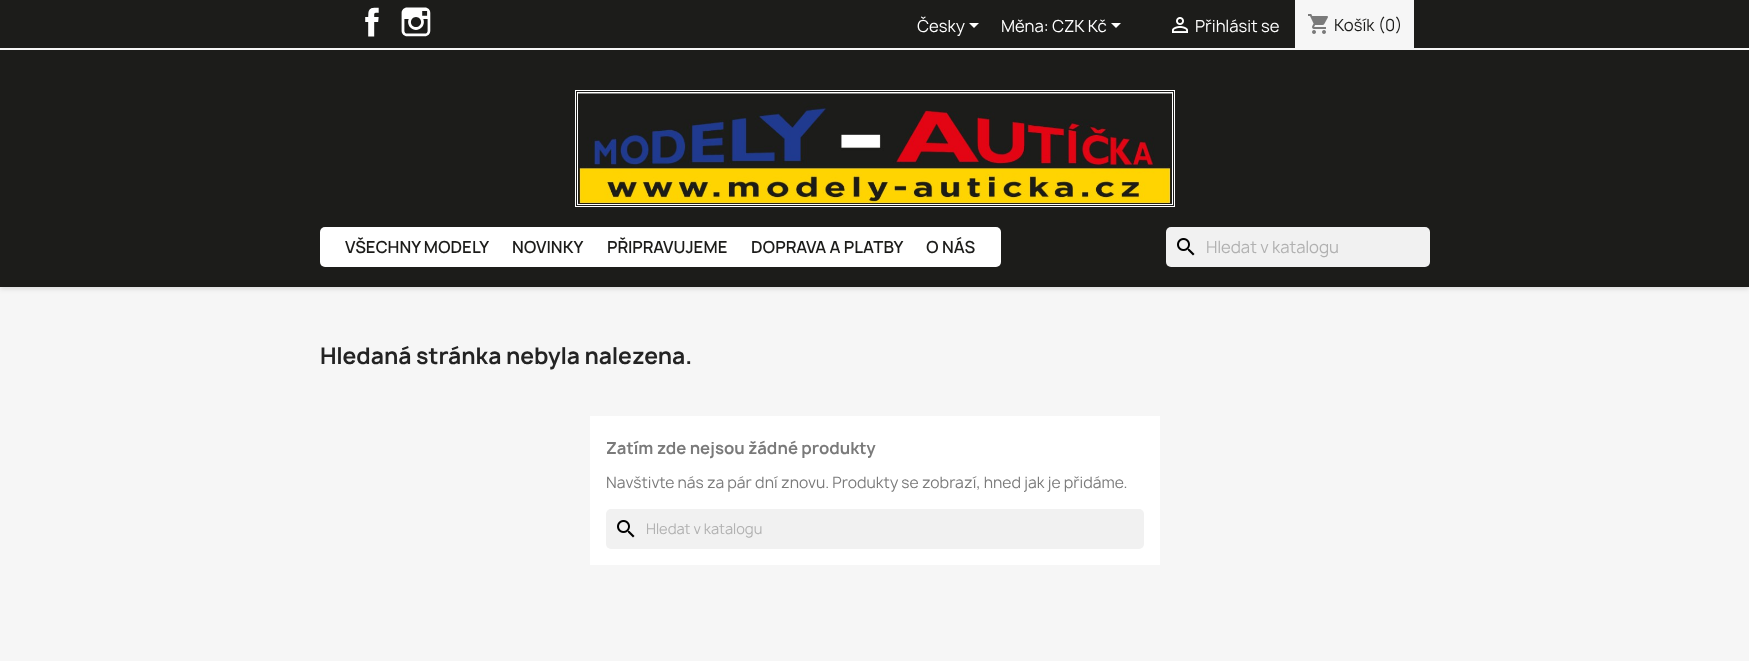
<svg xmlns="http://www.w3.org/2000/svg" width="1749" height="661">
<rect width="100%" height="100%" fill="#f6f6f6"/>
<rect y="2" width="1749" height="287" fill="#0000001c" filter="blur(2.5px)"/>
<rect width="1749" height="287" fill="#1c1c1a"/>
<rect y="48" width="1749" height="2" fill="#f6f6f6"/>
<image x="365" y="7" width="14" height="30" href="media/1.png"/>
<image x="401" y="7" width="30" height="30" href="media/2.png"/>
<text x="917" y="32" style="font-family:Manrope;font-size:16px;fill:#fff">Česky</text>
<path d="M969 23h10l-5 5z" fill="#fff"/>
<text x="1001" y="32" style="font-family:Manrope;font-size:16px;fill:#fff">Měna: CZK Kč</text>
<path d="M1111 23h10l-5 5z" fill="#fff"/>
<image x="1172" y="17" width="16" height="16" href="media/3.png"/>
<text x="1195" y="32" style="font-family:Manrope;font-size:16px;fill:#fff">Přihlásit se</text>
<rect x="1295" width="119" height="48" fill="#f6f6f6"/>
<image x="1308" y="14" width="20" height="20" href="media/4.png"/>
<text x="1334" y="31" style="font-family:Manrope;font-size:16px;fill:#1c1c1a">Košík (0)</text>
<rect x="575.5" y="90.5" width="599" height="116" fill="none" stroke="#fff"/>
<rect x="577.5" y="92.5" width="595" height="112" fill="none" stroke="#fff"/>
<image x="578" y="93" width="594" height="111" href="media/5.png"/>
<rect x="320" y="227" width="681" height="40" rx="5" fill="#fff"/>
<text x="345" y="253" style="font-family:Manrope;font-size:16px;font-weight:600;fill:#1c1c1a">VŠECHNY MODELY</text>
<text x="512" y="253" style="font-family:Manrope;font-size:16px;font-weight:600;fill:#1c1c1a">NOVINKY</text>
<text x="607" y="253" style="font-family:Manrope;font-size:16px;font-weight:600;fill:#1c1c1a">PŘIPRAVUJEME</text>
<text x="751" y="253" style="font-family:Manrope;font-size:16px;font-weight:600;fill:#1c1c1a">DOPRAVA A PLATBY</text>
<text x="926" y="253" style="font-family:Manrope;font-size:16px;font-weight:600;fill:#1c1c1a">O NÁS</text>
<rect x="1166" y="227" width="264" height="40" rx="5" fill="#f1f1f1"/>
<image x="1177" y="238" width="18" height="18" href="media/6.png"/>
<text x="1206" y="253" style="font-family:Manrope;font-size:16px;fill:#b1b1b1">Hledat v katalogu</text>
<text x="320" y="364" style="font-family:Manrope;font-size:22px;font-weight:bold;fill:#232323">Hledaná stránka nebyla nalezena.</text>
<rect x="590" y="416" width="570" height="149" fill="#fff"/>
<text x="606" y="454" style="font-family:Manrope;font-size:16px;font-weight:bold;fill:#7a7a7a">Zatím zde nejsou žádné produkty</text>
<text x="606" y="488" style="font-family:Manrope;font-size:15px;fill:#7a7a7a">Navštivte nás za pár dní znovu. Produkty se zobrazí, hned jak je přidáme.</text>
<rect x="606" y="509" width="538" height="40" rx="5" fill="#f1f1f1"/>
<image x="617" y="520" width="18" height="18" href="media/6.png"/>
<text x="646" y="534" style="font-family:Manrope;font-size:14px;fill:#b1b1b1">Hledat v katalogu</text>
</svg>
